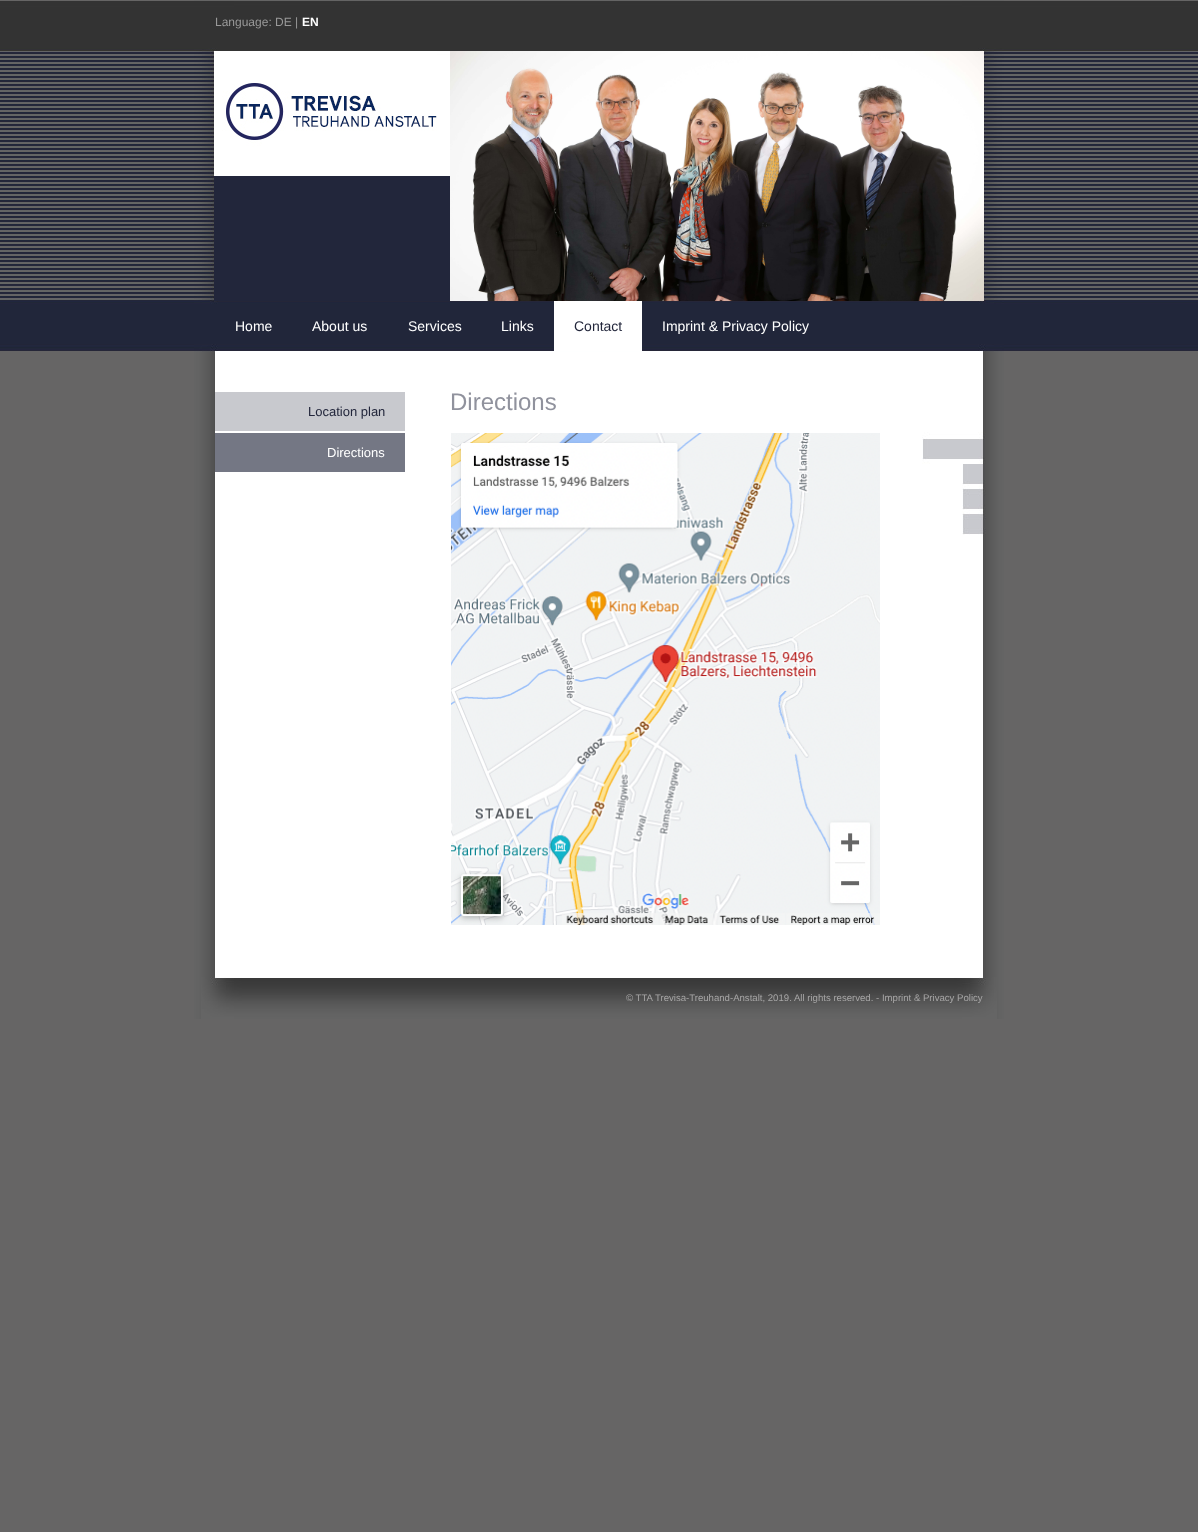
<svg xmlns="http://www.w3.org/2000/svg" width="1198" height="1532">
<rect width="100%" height="100%" fill="#666565"/>
<image x="0" y="1" width="1198" height="350" href="media/1.png"/>
<image x="194" y="535" width="810" height="484" href="media/2.png"/>
<image x="194" y="0" width="810" height="535" href="media/3.png"/>
<text x="215" y="26" style="font-family:Liberation Sans;font-size:12px;fill:#999">Language: DE |</text>
<text x="302" y="26" style="font-family:Liberation Sans;font-size:12px;font-weight:bold;fill:#fff">EN</text>
<image x="214" y="51" width="223" height="123" href="media/4.png"/>
<rect x="214" y="176" width="236" height="125" fill="#22263b"/>
<image x="450" y="51" width="534" height="250" href="media/5.png"/>
<text x="235" y="331" style="font-family:Liberation Sans;font-size:14px;fill:#fff">Home</text>
<text x="312" y="331" style="font-family:Liberation Sans;font-size:14px;fill:#fff">About us</text>
<text x="408" y="331" style="font-family:Liberation Sans;font-size:14px;fill:#fff">Services</text>
<text x="501" y="331" style="font-family:Liberation Sans;font-size:14px;fill:#fff">Links</text>
<rect x="554" y="301" width="88" height="50" fill="#fff"/>
<text x="574" y="331" style="font-family:Liberation Sans;font-size:14px;fill:#22263b">Contact</text>
<text x="662" y="331" style="font-family:Liberation Sans;font-size:14px;fill:#fff">Imprint &amp; Privacy Policy</text>
<text x="450" y="410" style="font-family:Liberation Sans;font-size:24px;fill:#90929d">Directions</text>
<image x="451" y="433" width="429" height="492" href="media/6.png"/>
<rect x="215" y="392" width="190" height="39" fill="#c8c9ce"/>
<text x="308" y="416" style="font-family:Liberation Sans;font-size:13px;fill:#22263b">Location plan</text>
<rect x="215" y="433" width="190" height="39" fill="#747784"/>
<text x="327" y="457" style="font-family:Liberation Sans;font-size:13px;fill:#fff">Directions</text>
<image x="201" y="977" width="796" height="42" href="media/7.png"/>
<text x="626" y="1001" style="font-family:Liberation Sans;font-size:9.6px;fill:#a7a6a6">© TTA Trevisa-Treuhand-Anstalt, 2019. All rights reserved. - Imprint &amp; Privacy Policy</text>
</svg>
